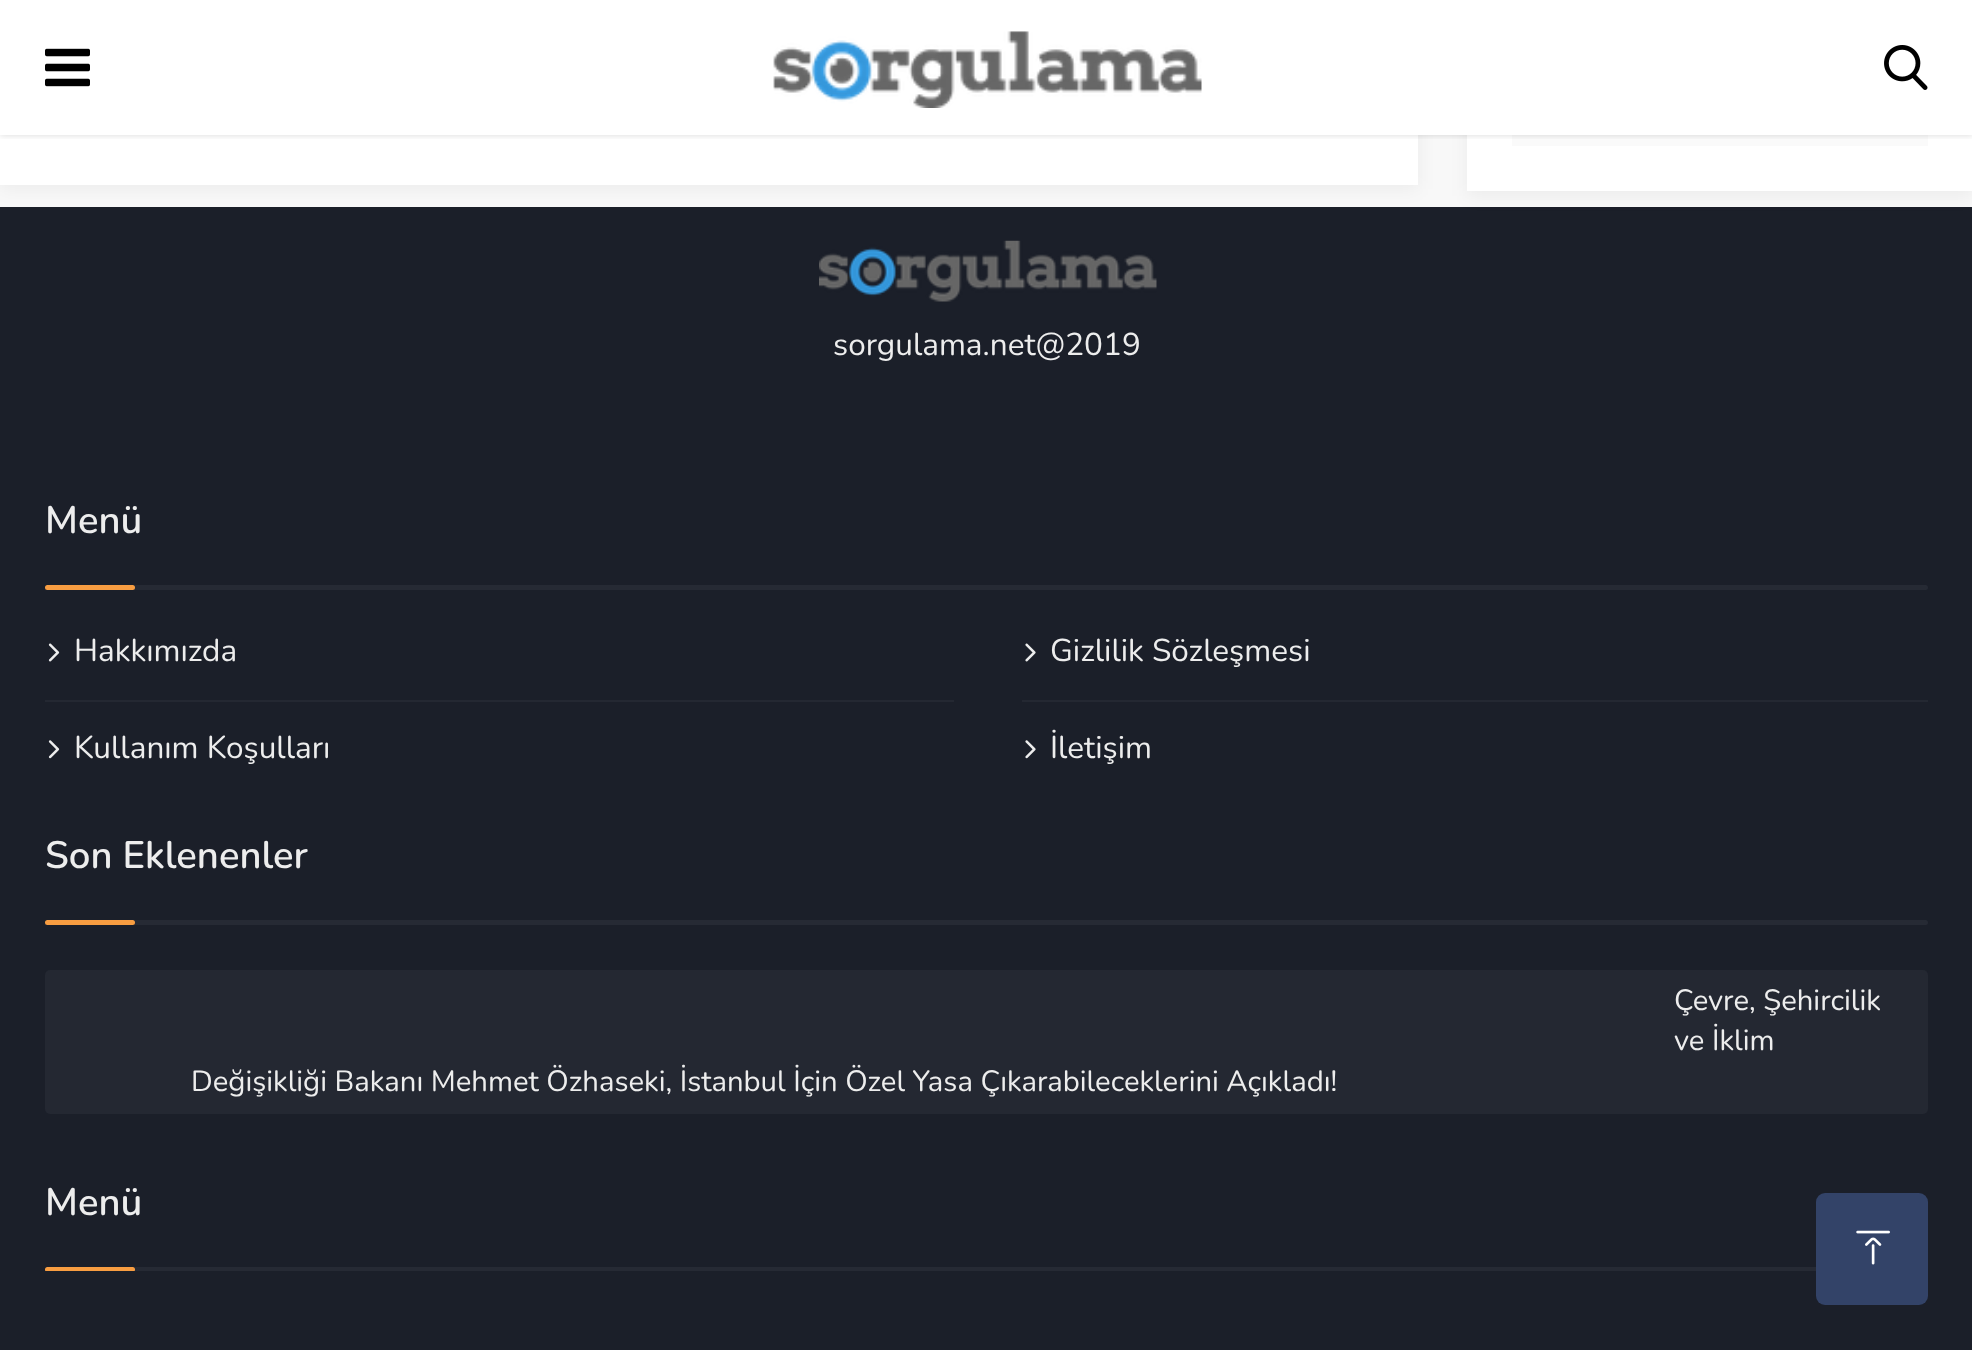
<svg xmlns="http://www.w3.org/2000/svg" width="1972" height="1350">
<defs>
<clipPath id="clip1"><rect x="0" y="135" width="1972" height="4"/></clipPath>
<clipPath id="clip2"><rect x="45" y="1181" width="1883" height="90"/></clipPath>
</defs>
<rect width="100%" height="100%" fill="#f8f8f8"/>
<rect y="207" width="1972" height="1143" fill="#1b1f29"/>
<rect y="-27" width="1418" height="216" fill="#0000000d" filter="blur(9px)"/>
<rect y="135" width="1418" height="50" fill="#fff"/>
<rect x="1467" y="-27" width="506" height="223" fill="#0000000d" filter="blur(9px)"/>
<rect x="1467" y="135" width="505" height="56" fill="#fff"/>
<rect x="1512" y="135" width="416" height="11" fill="#fafafa"/>
<rect width="1972" height="135" fill="#fff"/>
<g clip-path="url(#clip1)">
<rect width="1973" height="135" fill="#00000026" filter="blur(3.5px)"/>
</g>
<image x="773" y="31" width="429" height="77" href="media/1.png"/>
<image x="45" y="48" width="45" height="39" href="media/2.png"/>
<image x="1884" y="45" width="44" height="45" href="media/3.png"/>
<image x="819" y="240" width="338" height="62" href="media/4.png"/>
<text x="833" y="355" style="font-family:Nunito;font-size:31.5px;fill:#ededed">sorgulama.net@2019</text>
<text x="45" y="533" style="font-family:Nunito;font-size:38.25px;font-weight:600;fill:#ededed">Menü</text>
<rect x="45" y="585" width="1883" height="5" rx="2.5" fill="#262a34"/>
<rect x="45" y="585" width="90" height="5" rx="2.5" fill="#f89d41"/>
<image x="48" y="643" width="12" height="19" href="media/5.png"/>
<text x="74" y="661" style="font-family:Nunito;font-size:31.5px;fill:#ededed">Hakkımızda</text>
<image x="1025" y="643" width="11" height="19" href="media/6.png"/>
<text x="1050" y="661" style="font-family:Nunito;font-size:31.5px;fill:#ededed">Gizlilik Sözleşmesi</text>
<rect x="45" y="700" width="909" height="2" fill="#242832"/>
<image x="48" y="740" width="12" height="19" href="media/7.png"/>
<text x="74" y="758" style="font-family:Nunito;font-size:31.5px;fill:#ededed">Kullanım Koşulları</text>
<rect x="1022" y="700" width="906" height="2" fill="#242832"/>
<image x="1025" y="740" width="11" height="19" href="media/8.png"/>
<text x="1050" y="758" style="font-family:Nunito;font-size:31.5px;fill:#ededed">İletişim</text>
<text x="45" y="868" style="font-family:Nunito;font-size:38.25px;font-weight:600;fill:#ededed">Son Eklenenler</text>
<rect x="45" y="920" width="1883" height="5" rx="2.5" fill="#262a34"/>
<rect x="45" y="920" width="90" height="5" rx="2.5" fill="#f89d41"/>
<rect x="45" y="970" width="1883" height="144" rx="5" fill="#242832"/>
<text x="1674" y="1010" style="font-family:Nunito;font-size:29.25px;fill:#ededed">Çevre, Şehircilik</text>
<text x="1674" y="1050" style="font-family:Nunito;font-size:29.25px;fill:#ededed">ve İklim</text>
<text x="191" y="1091" style="font-family:Nunito;font-size:29.25px;fill:#ededed">Değişikliği Bakanı Mehmet Özhaseki, İstanbul İçin Özel Yasa Çıkarabileceklerini Açıkladı!</text>
<text x="45" y="1215" style="font-family:Nunito;font-size:38.25px;font-weight:600;fill:#ededed">Menü</text>
<g clip-path="url(#clip2)">
<rect x="45" y="1267" width="1883" height="5" rx="2.5" fill="#262a34"/>
<rect x="45" y="1267" width="90" height="5" rx="2.5" fill="#f89d41"/>
</g>
<rect x="1816" y="1193" width="112" height="112" rx="9" fill="#334368"/>
<image x="1856" y="1230" width="34" height="35" href="media/9.png"/>
</svg>
